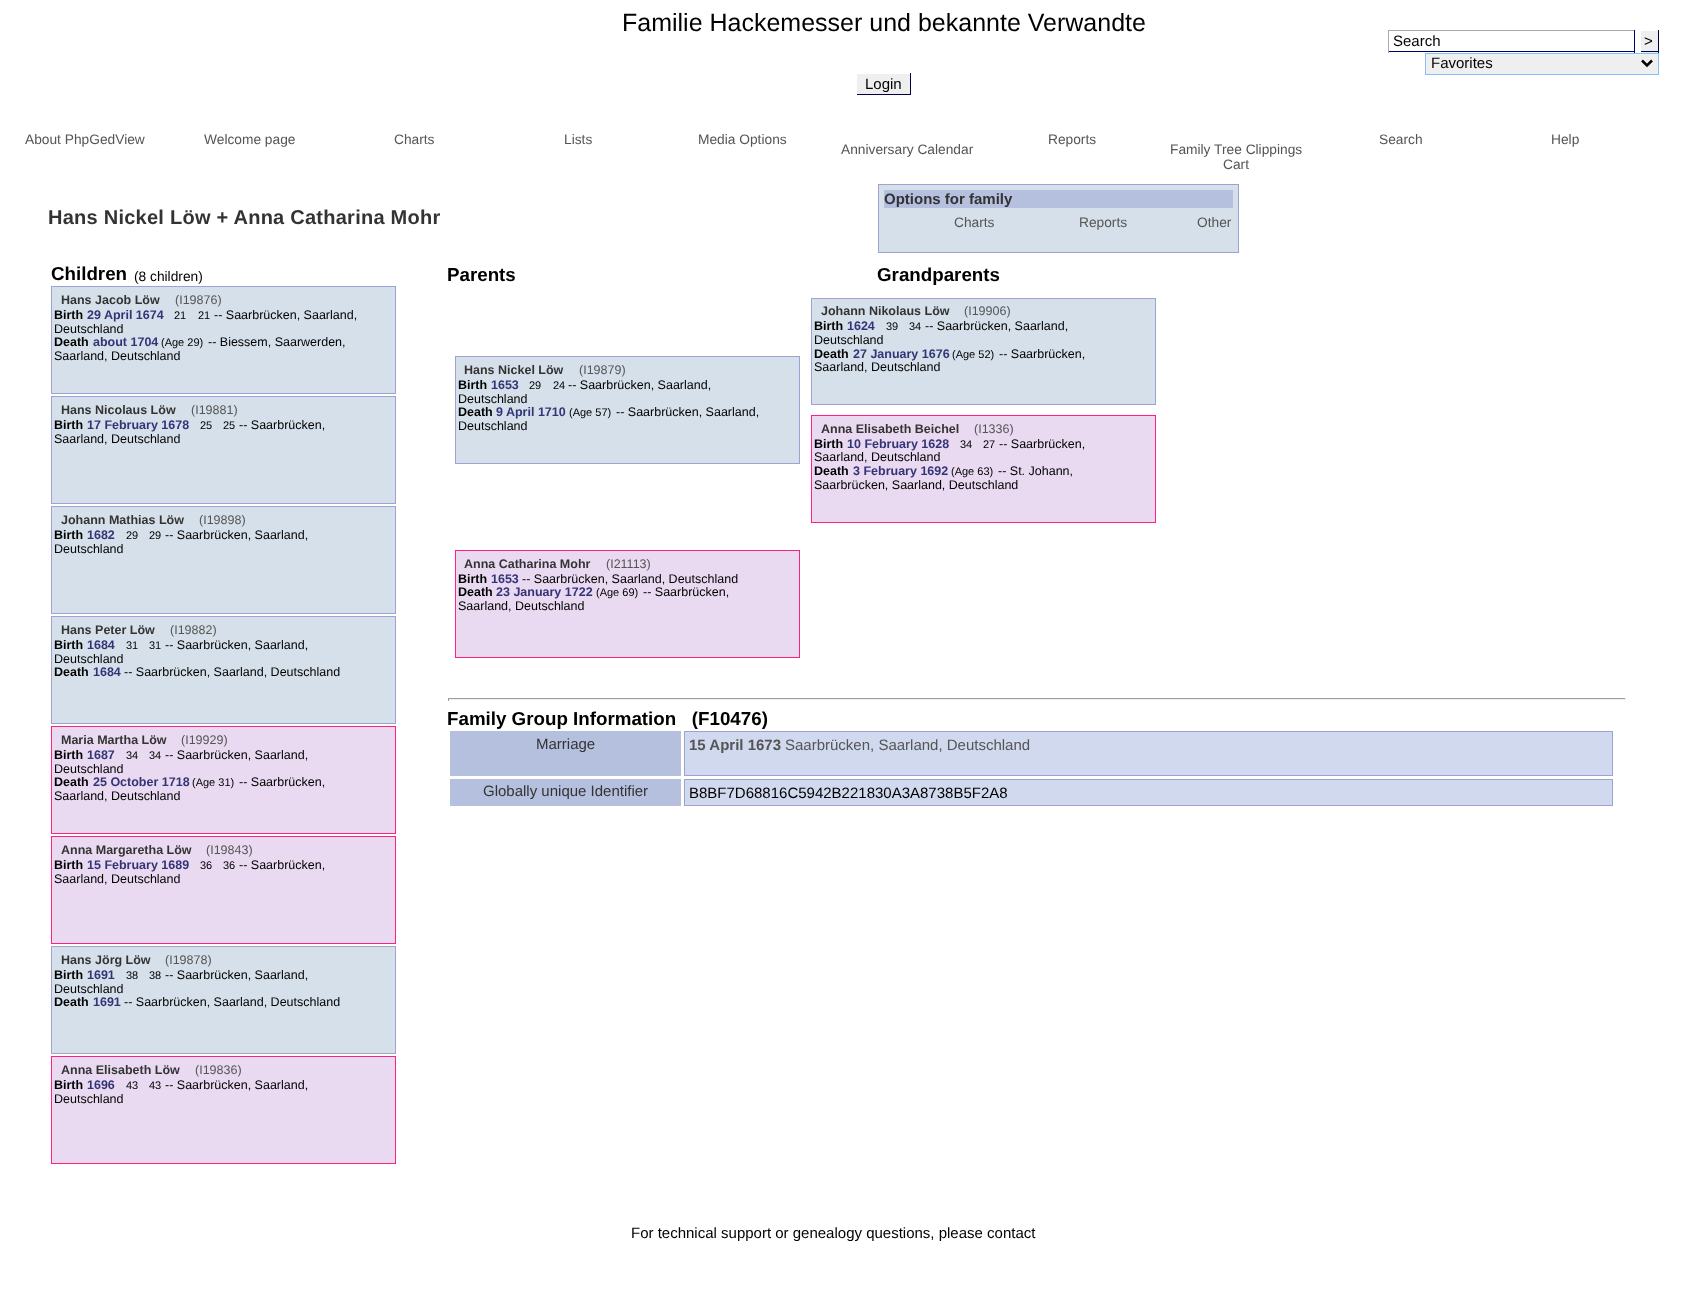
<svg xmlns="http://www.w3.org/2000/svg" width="1683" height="1311">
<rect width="100%" height="100%" fill="#fff"/>
<text x="622" y="31" style="font-family:Liberation Sans;font-size:25px;fill:#000">Familie Hackemesser und bekannte Verwandte</text>
<rect x="857" y="74" width="53" height="20" fill="#efefef"/>
<rect x="910" y="73" width="1" height="22" fill="#004"/>
<rect x="856" y="94" width="55" height="1" fill="#004"/>
<rect x="856" y="94" width="1" height="1" fill="#fff"/>
<text x="865" y="89" style="font-family:Liberation Sans;font-size:15px;fill:#000">Login</text>
<rect x="1388" y="30" width="247" height="1" fill="#aaa"/>
<rect x="1634" y="30" width="1" height="23" fill="#006"/>
<rect x="1388" y="51" width="247" height="1" fill="#006"/>
<rect x="1388" y="30" width="1" height="23" fill="#aaa"/>
<text x="1393" y="46" style="font-family:Liberation Sans;font-size:15px;fill:#000">Search</text>
<rect x="1641" y="31" width="17" height="22" fill="#efefef"/>
<rect x="1658" y="30" width="1" height="23" fill="#004"/>
<rect x="1640" y="51" width="19" height="1" fill="#004"/>
<rect x="1640" y="51" width="1" height="2" fill="#fff"/>
<text x="1644" y="46" style="font-family:Liberation Sans;font-size:15px;fill:#000">&gt;</text>
<rect x="1425.5" y="53.5" width="233" height="21" fill="#efefef" stroke="#84beff"/>
<path d="M1642 60.5l5 5l5-5" fill="none" stroke="#000" stroke-width="2.5"/>
<text x="1431" y="68" style="font-family:Liberation Sans;font-size:15px;fill:#000">Favorites</text>
<text x="25" y="144" style="font-family:Liberation Sans;font-size:13.75px;fill:#555">About PhpGedView</text>
<text x="204" y="144" style="font-family:Liberation Sans;font-size:13.75px;fill:#555">Welcome page</text>
<text x="394" y="144" style="font-family:Liberation Sans;font-size:13.75px;fill:#555">Charts</text>
<text x="564" y="144" style="font-family:Liberation Sans;font-size:13.75px;fill:#555">Lists</text>
<text x="698" y="144" style="font-family:Liberation Sans;font-size:13.75px;fill:#555">Media Options</text>
<text x="1048" y="144" style="font-family:Liberation Sans;font-size:13.75px;fill:#555">Reports</text>
<text x="1379" y="144" style="font-family:Liberation Sans;font-size:13.75px;fill:#555">Search</text>
<text x="1551" y="144" style="font-family:Liberation Sans;font-size:13.75px;fill:#555">Help</text>
<text x="841" y="154" style="font-family:Liberation Sans;font-size:13.75px;fill:#555">Anniversary Calendar</text>
<text x="1170" y="154" style="font-family:Liberation Sans;font-size:13.75px;fill:#555">Family Tree Clippings</text>
<text x="1223" y="169" style="font-family:Liberation Sans;font-size:13.75px;fill:#555">Cart</text>
<text x="48" y="224" style="font-family:Liberation Sans;font-size:20px;font-weight:bold;letter-spacing:0.25px;fill:#333">Hans Nickel Löw + Anna Catharina Mohr</text>
<rect x="878.5" y="184.5" width="360" height="68" fill="#d6e0ea" stroke="#9ca3d4"/>
<rect x="884" y="190" width="349" height="18" fill="#b5c0df"/>
<text x="884" y="204" style="font-family:Liberation Sans;font-size:15px;font-weight:bold;fill:#333">Options for family</text>
<text x="954" y="227" style="font-family:Liberation Sans;font-size:13.75px;fill:#555">Charts</text>
<text x="1079" y="227" style="font-family:Liberation Sans;font-size:13.75px;fill:#555">Reports</text>
<text x="1197" y="227" style="font-family:Liberation Sans;font-size:13.75px;fill:#555">Other</text>
<text x="51" y="280" style="font-family:Liberation Sans;font-size:18.75px;font-weight:bold;fill:#000">Children</text>
<text x="134" y="281" style="font-family:Liberation Sans;font-size:13.75px;fill:#000">(8 children)</text>
<rect x="51.5" y="286.5" width="344" height="107" fill="#d6e0ea" stroke="#9ca3d4"/>
<text x="61" y="304" style="font-family:Liberation Sans;font-size:12.5px;font-weight:bold;fill:#333">Hans Jacob Löw</text>
<text x="175" y="304" style="font-family:Liberation Sans;font-size:12.5px;fill:#555">(I19876)</text>
<text x="54" y="319" style="font-family:Liberation Sans;font-size:12.5px;font-weight:bold;fill:#000">Birth</text>
<text x="87" y="319" style="font-family:Liberation Sans;font-size:12.5px;font-weight:bold;fill:#337">29 April 1674</text>
<text x="174" y="319" style="font-family:Liberation Sans;font-size:11px;fill:#000">21</text>
<text x="198" y="319" style="font-family:Liberation Sans;font-size:11px;fill:#000">21</text>
<text x="214" y="319" style="font-family:Liberation Sans;font-size:12.5px;fill:#000">-- Saarbrücken, Saarland,</text>
<text x="54" y="333" style="font-family:Liberation Sans;font-size:12.5px;fill:#000">Deutschland</text>
<text x="54" y="346" style="font-family:Liberation Sans;font-size:12.5px;font-weight:bold;fill:#000">Death</text>
<text x="93" y="346" style="font-family:Liberation Sans;font-size:12.5px;font-weight:bold;fill:#337">about 1704</text>
<text x="161" y="346" style="font-family:Liberation Sans;font-size:11px;fill:#000">(Age 29)</text>
<text x="208" y="346" style="font-family:Liberation Sans;font-size:12.5px;fill:#000">-- Biessem, Saarwerden,</text>
<text x="54" y="360" style="font-family:Liberation Sans;font-size:12.5px;fill:#000">Saarland, Deutschland</text>
<rect x="51.5" y="396.5" width="344" height="107" fill="#d6e0ea" stroke="#9ca3d4"/>
<text x="61" y="414" style="font-family:Liberation Sans;font-size:12.5px;font-weight:bold;fill:#333">Hans Nicolaus Löw</text>
<text x="191" y="414" style="font-family:Liberation Sans;font-size:12.5px;fill:#555">(I19881)</text>
<text x="54" y="429" style="font-family:Liberation Sans;font-size:12.5px;font-weight:bold;fill:#000">Birth</text>
<text x="87" y="429" style="font-family:Liberation Sans;font-size:12.5px;font-weight:bold;fill:#337">17 February 1678</text>
<text x="200" y="429" style="font-family:Liberation Sans;font-size:11px;fill:#000">25</text>
<text x="223" y="429" style="font-family:Liberation Sans;font-size:11px;fill:#000">25</text>
<text x="239" y="429" style="font-family:Liberation Sans;font-size:12.5px;fill:#000">-- Saarbrücken,</text>
<text x="54" y="443" style="font-family:Liberation Sans;font-size:12.5px;fill:#000">Saarland, Deutschland</text>
<rect x="51.5" y="506.5" width="344" height="107" fill="#d6e0ea" stroke="#9ca3d4"/>
<text x="61" y="524" style="font-family:Liberation Sans;font-size:12.5px;font-weight:bold;fill:#333">Johann Mathias Löw</text>
<text x="199" y="524" style="font-family:Liberation Sans;font-size:12.5px;fill:#555">(I19898)</text>
<text x="54" y="539" style="font-family:Liberation Sans;font-size:12.5px;font-weight:bold;fill:#000">Birth</text>
<text x="87" y="539" style="font-family:Liberation Sans;font-size:12.5px;font-weight:bold;fill:#337">1682</text>
<text x="126" y="539" style="font-family:Liberation Sans;font-size:11px;fill:#000">29</text>
<text x="149" y="539" style="font-family:Liberation Sans;font-size:11px;fill:#000">29</text>
<text x="165" y="539" style="font-family:Liberation Sans;font-size:12.5px;fill:#000">-- Saarbrücken, Saarland,</text>
<text x="54" y="553" style="font-family:Liberation Sans;font-size:12.5px;fill:#000">Deutschland</text>
<rect x="51.5" y="616.5" width="344" height="107" fill="#d6e0ea" stroke="#9ca3d4"/>
<text x="61" y="634" style="font-family:Liberation Sans;font-size:12.5px;font-weight:bold;fill:#333">Hans Peter Löw</text>
<text x="170" y="634" style="font-family:Liberation Sans;font-size:12.5px;fill:#555">(I19882)</text>
<text x="54" y="649" style="font-family:Liberation Sans;font-size:12.5px;font-weight:bold;fill:#000">Birth</text>
<text x="87" y="649" style="font-family:Liberation Sans;font-size:12.5px;font-weight:bold;fill:#337">1684</text>
<text x="126" y="649" style="font-family:Liberation Sans;font-size:11px;fill:#000">31</text>
<text x="149" y="649" style="font-family:Liberation Sans;font-size:11px;fill:#000">31</text>
<text x="165" y="649" style="font-family:Liberation Sans;font-size:12.5px;fill:#000">-- Saarbrücken, Saarland,</text>
<text x="54" y="663" style="font-family:Liberation Sans;font-size:12.5px;fill:#000">Deutschland</text>
<text x="54" y="676" style="font-family:Liberation Sans;font-size:12.5px;font-weight:bold;fill:#000">Death</text>
<text x="93" y="676" style="font-family:Liberation Sans;font-size:12.5px;font-weight:bold;fill:#337">1684</text>
<text x="124" y="676" style="font-family:Liberation Sans;font-size:12.5px;fill:#000">-- Saarbrücken, Saarland, Deutschland</text>
<rect x="51.5" y="726.5" width="344" height="107" fill="#e9daf1" stroke="#ff2080"/>
<text x="61" y="744" style="font-family:Liberation Sans;font-size:12.5px;font-weight:bold;fill:#333">Maria Martha Löw</text>
<text x="181" y="744" style="font-family:Liberation Sans;font-size:12.5px;fill:#555">(I19929)</text>
<text x="54" y="759" style="font-family:Liberation Sans;font-size:12.5px;font-weight:bold;fill:#000">Birth</text>
<text x="87" y="759" style="font-family:Liberation Sans;font-size:12.5px;font-weight:bold;fill:#337">1687</text>
<text x="126" y="759" style="font-family:Liberation Sans;font-size:11px;fill:#000">34</text>
<text x="149" y="759" style="font-family:Liberation Sans;font-size:11px;fill:#000">34</text>
<text x="165" y="759" style="font-family:Liberation Sans;font-size:12.5px;fill:#000">-- Saarbrücken, Saarland,</text>
<text x="54" y="773" style="font-family:Liberation Sans;font-size:12.5px;fill:#000">Deutschland</text>
<text x="54" y="786" style="font-family:Liberation Sans;font-size:12.5px;font-weight:bold;fill:#000">Death</text>
<text x="93" y="786" style="font-family:Liberation Sans;font-size:12.5px;font-weight:bold;fill:#337">25 October 1718</text>
<text x="192" y="786" style="font-family:Liberation Sans;font-size:11px;fill:#000">(Age 31)</text>
<text x="239" y="786" style="font-family:Liberation Sans;font-size:12.5px;fill:#000">-- Saarbrücken,</text>
<text x="54" y="800" style="font-family:Liberation Sans;font-size:12.5px;fill:#000">Saarland, Deutschland</text>
<rect x="51.5" y="836.5" width="344" height="107" fill="#e9daf1" stroke="#ff2080"/>
<text x="61" y="854" style="font-family:Liberation Sans;font-size:12.5px;font-weight:bold;fill:#333">Anna Margaretha Löw</text>
<text x="206" y="854" style="font-family:Liberation Sans;font-size:12.5px;fill:#555">(I19843)</text>
<text x="54" y="869" style="font-family:Liberation Sans;font-size:12.5px;font-weight:bold;fill:#000">Birth</text>
<text x="87" y="869" style="font-family:Liberation Sans;font-size:12.5px;font-weight:bold;fill:#337">15 February 1689</text>
<text x="200" y="869" style="font-family:Liberation Sans;font-size:11px;fill:#000">36</text>
<text x="223" y="869" style="font-family:Liberation Sans;font-size:11px;fill:#000">36</text>
<text x="239" y="869" style="font-family:Liberation Sans;font-size:12.5px;fill:#000">-- Saarbrücken,</text>
<text x="54" y="883" style="font-family:Liberation Sans;font-size:12.5px;fill:#000">Saarland, Deutschland</text>
<rect x="51.5" y="946.5" width="344" height="107" fill="#d6e0ea" stroke="#9ca3d4"/>
<text x="61" y="964" style="font-family:Liberation Sans;font-size:12.5px;font-weight:bold;fill:#333">Hans Jörg Löw</text>
<text x="165" y="964" style="font-family:Liberation Sans;font-size:12.5px;fill:#555">(I19878)</text>
<text x="54" y="979" style="font-family:Liberation Sans;font-size:12.5px;font-weight:bold;fill:#000">Birth</text>
<text x="87" y="979" style="font-family:Liberation Sans;font-size:12.5px;font-weight:bold;fill:#337">1691</text>
<text x="126" y="979" style="font-family:Liberation Sans;font-size:11px;fill:#000">38</text>
<text x="149" y="979" style="font-family:Liberation Sans;font-size:11px;fill:#000">38</text>
<text x="165" y="979" style="font-family:Liberation Sans;font-size:12.5px;fill:#000">-- Saarbrücken, Saarland,</text>
<text x="54" y="993" style="font-family:Liberation Sans;font-size:12.5px;fill:#000">Deutschland</text>
<text x="54" y="1006" style="font-family:Liberation Sans;font-size:12.5px;font-weight:bold;fill:#000">Death</text>
<text x="93" y="1006" style="font-family:Liberation Sans;font-size:12.5px;font-weight:bold;fill:#337">1691</text>
<text x="124" y="1006" style="font-family:Liberation Sans;font-size:12.5px;fill:#000">-- Saarbrücken, Saarland, Deutschland</text>
<rect x="51.5" y="1056.5" width="344" height="107" fill="#e9daf1" stroke="#ff2080"/>
<text x="61" y="1074" style="font-family:Liberation Sans;font-size:12.5px;font-weight:bold;fill:#333">Anna Elisabeth Löw</text>
<text x="195" y="1074" style="font-family:Liberation Sans;font-size:12.5px;fill:#555">(I19836)</text>
<text x="54" y="1089" style="font-family:Liberation Sans;font-size:12.5px;font-weight:bold;fill:#000">Birth</text>
<text x="87" y="1089" style="font-family:Liberation Sans;font-size:12.5px;font-weight:bold;fill:#337">1696</text>
<text x="126" y="1089" style="font-family:Liberation Sans;font-size:11px;fill:#000">43</text>
<text x="149" y="1089" style="font-family:Liberation Sans;font-size:11px;fill:#000">43</text>
<text x="165" y="1089" style="font-family:Liberation Sans;font-size:12.5px;fill:#000">-- Saarbrücken, Saarland,</text>
<text x="54" y="1103" style="font-family:Liberation Sans;font-size:12.5px;fill:#000">Deutschland</text>
<text x="447" y="281" style="font-family:Liberation Sans;font-size:18.75px;font-weight:bold;fill:#000">Parents</text>
<text x="877" y="281" style="font-family:Liberation Sans;font-size:18.75px;font-weight:bold;fill:#000">Grandparents</text>
<rect x="811.5" y="298.5" width="344" height="106" fill="#d6e0ea" stroke="#9ca3d4"/>
<text x="821" y="315" style="font-family:Liberation Sans;font-size:12.5px;font-weight:bold;fill:#333">Johann Nikolaus Löw</text>
<text x="964" y="315" style="font-family:Liberation Sans;font-size:12.5px;fill:#555">(I19906)</text>
<text x="814" y="330" style="font-family:Liberation Sans;font-size:12.5px;font-weight:bold;fill:#000">Birth</text>
<text x="847" y="330" style="font-family:Liberation Sans;font-size:12.5px;font-weight:bold;fill:#337">1624</text>
<text x="886" y="330" style="font-family:Liberation Sans;font-size:11px;fill:#000">39</text>
<text x="909" y="330" style="font-family:Liberation Sans;font-size:11px;fill:#000">34</text>
<text x="925" y="330" style="font-family:Liberation Sans;font-size:12.5px;fill:#000">-- Saarbrücken, Saarland,</text>
<text x="814" y="344" style="font-family:Liberation Sans;font-size:12.5px;fill:#000">Deutschland</text>
<text x="814" y="358" style="font-family:Liberation Sans;font-size:12.5px;font-weight:bold;fill:#000">Death</text>
<text x="853" y="358" style="font-family:Liberation Sans;font-size:12.5px;font-weight:bold;fill:#337">27 January 1676</text>
<text x="952" y="358" style="font-family:Liberation Sans;font-size:11px;fill:#000">(Age 52)</text>
<text x="999" y="358" style="font-family:Liberation Sans;font-size:12.5px;fill:#000">-- Saarbrücken,</text>
<text x="814" y="371" style="font-family:Liberation Sans;font-size:12.5px;fill:#000">Saarland, Deutschland</text>
<rect x="455.5" y="356.5" width="344" height="107" fill="#d6e0ea" stroke="#9ca3d4"/>
<text x="464" y="374" style="font-family:Liberation Sans;font-size:12.5px;font-weight:bold;fill:#333">Hans Nickel Löw</text>
<text x="579" y="374" style="font-family:Liberation Sans;font-size:12.5px;fill:#555">(I19879)</text>
<text x="458" y="389" style="font-family:Liberation Sans;font-size:12.5px;font-weight:bold;fill:#000">Birth</text>
<text x="491" y="389" style="font-family:Liberation Sans;font-size:12.5px;font-weight:bold;fill:#337">1653</text>
<text x="529" y="389" style="font-family:Liberation Sans;font-size:11px;fill:#000">29</text>
<text x="553" y="389" style="font-family:Liberation Sans;font-size:11px;fill:#000">24</text>
<text x="568" y="389" style="font-family:Liberation Sans;font-size:12.5px;fill:#000">-- Saarbrücken, Saarland,</text>
<text x="458" y="403" style="font-family:Liberation Sans;font-size:12.5px;fill:#000">Deutschland</text>
<text x="458" y="416" style="font-family:Liberation Sans;font-size:12.5px;font-weight:bold;fill:#000">Death</text>
<text x="496" y="416" style="font-family:Liberation Sans;font-size:12.5px;font-weight:bold;fill:#337">9 April 1710</text>
<text x="569" y="416" style="font-family:Liberation Sans;font-size:11px;fill:#000">(Age 57)</text>
<text x="616" y="416" style="font-family:Liberation Sans;font-size:12.5px;fill:#000">-- Saarbrücken, Saarland,</text>
<text x="458" y="430" style="font-family:Liberation Sans;font-size:12.5px;fill:#000">Deutschland</text>
<rect x="811.5" y="415.5" width="344" height="107" fill="#e9daf1" stroke="#ff2080"/>
<text x="821" y="433" style="font-family:Liberation Sans;font-size:12.5px;font-weight:bold;fill:#333">Anna Elisabeth Beichel</text>
<text x="974" y="433" style="font-family:Liberation Sans;font-size:12.5px;fill:#555">(I1336)</text>
<text x="814" y="448" style="font-family:Liberation Sans;font-size:12.5px;font-weight:bold;fill:#000">Birth</text>
<text x="847" y="448" style="font-family:Liberation Sans;font-size:12.5px;font-weight:bold;fill:#337">10 February 1628</text>
<text x="960" y="448" style="font-family:Liberation Sans;font-size:11px;fill:#000">34</text>
<text x="983" y="448" style="font-family:Liberation Sans;font-size:11px;fill:#000">27</text>
<text x="999" y="448" style="font-family:Liberation Sans;font-size:12.5px;fill:#000">-- Saarbrücken,</text>
<text x="814" y="461" style="font-family:Liberation Sans;font-size:12.5px;fill:#000">Saarland, Deutschland</text>
<text x="814" y="475" style="font-family:Liberation Sans;font-size:12.5px;font-weight:bold;fill:#000">Death</text>
<text x="853" y="475" style="font-family:Liberation Sans;font-size:12.5px;font-weight:bold;fill:#337">3 February 1692</text>
<text x="951" y="475" style="font-family:Liberation Sans;font-size:11px;fill:#000">(Age 63)</text>
<text x="998" y="475" style="font-family:Liberation Sans;font-size:12.5px;fill:#000">-- St. Johann,</text>
<text x="814" y="489" style="font-family:Liberation Sans;font-size:12.5px;fill:#000">Saarbrücken, Saarland, Deutschland</text>
<rect x="455.5" y="550.5" width="344" height="107" fill="#e9daf1" stroke="#ff2080"/>
<text x="464" y="568" style="font-family:Liberation Sans;font-size:12.5px;font-weight:bold;fill:#333">Anna Catharina Mohr</text>
<text x="606" y="568" style="font-family:Liberation Sans;font-size:12.5px;fill:#555">(I21113)</text>
<text x="458" y="583" style="font-family:Liberation Sans;font-size:12.5px;font-weight:bold;fill:#000">Birth</text>
<text x="491" y="583" style="font-family:Liberation Sans;font-size:12.5px;font-weight:bold;fill:#337">1653</text>
<text x="522" y="583" style="font-family:Liberation Sans;font-size:12.5px;fill:#000">-- Saarbrücken, Saarland, Deutschland</text>
<text x="458" y="596" style="font-family:Liberation Sans;font-size:12.5px;font-weight:bold;fill:#000">Death</text>
<text x="496" y="596" style="font-family:Liberation Sans;font-size:12.5px;font-weight:bold;fill:#337">23 January 1722</text>
<text x="596" y="596" style="font-family:Liberation Sans;font-size:11px;fill:#000">(Age 69)</text>
<text x="643" y="596" style="font-family:Liberation Sans;font-size:12.5px;fill:#000">-- Saarbrücken,</text>
<text x="458" y="610" style="font-family:Liberation Sans;font-size:12.5px;fill:#000">Saarland, Deutschland</text>
<rect x="448" y="698" width="1178" height="1" fill="#9f9f9f"/>
<rect x="1625" y="698" width="1" height="3" fill="#eee"/>
<rect x="448" y="699" width="1178" height="1" fill="#eee"/>
<rect x="448" y="698" width="1" height="3" fill="#9f9f9f"/>
<text x="447" y="725" style="font-family:Liberation Sans;font-size:18.75px;font-weight:bold;fill:#000" xml:space="preserve">Family Group Information   (F10476)</text>
<rect x="450" y="731" width="231" height="45" fill="#b5c0df"/>
<text x="536" y="749" style="font-family:Liberation Sans;font-size:15px;fill:#333">Marriage</text>
<rect x="684.5" y="731.5" width="928" height="44" fill="#d1d9ef" stroke="#9ca3d4"/>
<text x="689" y="750" style="font-family:Liberation Sans;font-size:15px;font-weight:bold;fill:#555">15 April 1673</text>
<text x="785" y="750" style="font-family:Liberation Sans;font-size:15px;fill:#555">Saarbrücken, Saarland, Deutschland</text>
<rect x="450" y="779" width="231" height="27" fill="#b5c0df"/>
<text x="483" y="796" style="font-family:Liberation Sans;font-size:15px;fill:#333">Globally unique Identifier</text>
<rect x="684.5" y="779.5" width="928" height="26" fill="#d1d9ef" stroke="#9ca3d4"/>
<text x="689" y="798" style="font-family:Liberation Sans;font-size:15px;fill:#000">B8BF7D68816C5942B221830A3A8738B5F2A8</text>
<text x="631" y="1238" style="font-family:Liberation Sans;font-size:15px;fill:#000">For technical support or genealogy questions, please contact</text>
</svg>
